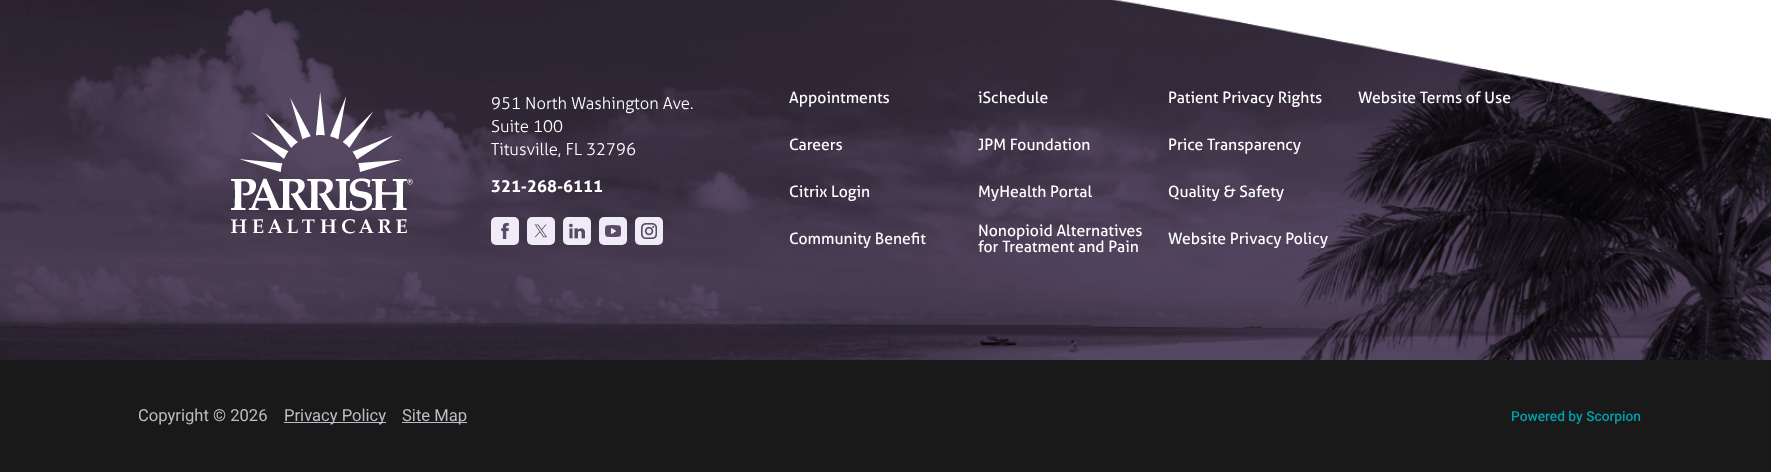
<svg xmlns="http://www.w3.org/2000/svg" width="1771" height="472">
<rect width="100%" height="100%" fill="#fff"/>
<image x="0" y="0" width="1771" height="360" href="media/1.png"/>
<image x="231" y="92" width="182" height="142" href="media/2.png"/>
<text x="491" y="109" style="font-family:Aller;font-size:16.6px;font-weight:300;fill:#fff">951 North Washington Ave.</text>
<text x="491" y="132" style="font-family:Aller;font-size:16.6px;font-weight:300;fill:#fff">Suite 100</text>
<text x="491" y="155" style="font-family:Aller;font-size:16.6px;font-weight:300;fill:#fff">Titusville, FL 32796</text>
<text x="491" y="192" style="font-family:Aller;font-size:16.6px;font-weight:bold;fill:#fff">321-268-6111</text>
<rect x="491" y="217" width="28" height="28" rx="5" fill="#efecf7"/>
<image x="501" y="223" width="8" height="16" href="media/3.png"/>
<rect x="527" y="217" width="28" height="28" rx="5" fill="#efecf7"/>
<image x="534" y="224" width="13" height="14" href="media/4.png"/>
<rect x="563" y="217" width="28" height="28" rx="5" fill="#efecf7"/>
<image x="569" y="223" width="16" height="16" href="media/5.png"/>
<rect x="599" y="217" width="28" height="28" rx="5" fill="#efecf7"/>
<image x="605" y="225" width="16" height="13" href="media/6.png"/>
<rect x="635" y="217" width="28" height="28" rx="5" fill="#efecf7"/>
<image x="641" y="223" width="16" height="16" href="media/7.png"/>
<text x="789" y="103" style="font-family:Aller;font-size:15.75px;fill:#fff">Appointments</text>
<text x="978" y="103" style="font-family:Aller;font-size:15.75px;fill:#fff">iSchedule</text>
<text x="1168" y="103" style="font-family:Aller;font-size:15.75px;fill:#fff">Patient Privacy Rights</text>
<text x="1358" y="103" style="font-family:Aller;font-size:15.75px;fill:#fff">Website Terms of Use</text>
<text x="789" y="150" style="font-family:Aller;font-size:15.75px;fill:#fff">Careers</text>
<text x="978" y="150" style="font-family:Aller;font-size:15.75px;fill:#fff">JPM Foundation</text>
<text x="1168" y="150" style="font-family:Aller;font-size:15.75px;fill:#fff">Price Transparency</text>
<text x="789" y="197" style="font-family:Aller;font-size:15.75px;fill:#fff">Citrix Login</text>
<text x="978" y="197" style="font-family:Aller;font-size:15.75px;fill:#fff">MyHealth Portal</text>
<text x="1168" y="197" style="font-family:Aller;font-size:15.75px;fill:#fff">Quality &amp; Safety</text>
<text x="789" y="244" style="font-family:Aller;font-size:15.75px;fill:#fff">Community Benefit</text>
<text x="978" y="236" style="font-family:Aller;font-size:15.75px;fill:#fff">Nonopioid Alternatives</text>
<text x="978" y="252" style="font-family:Aller;font-size:15.75px;fill:#fff">for Treatment and Pain</text>
<text x="1168" y="244" style="font-family:Aller;font-size:15.75px;fill:#fff">Website Privacy Policy</text>
<rect y="360" width="1771" height="112" fill="#191919"/>
<text x="138" y="421" style="font-family:Roboto;font-size:16.6px;fill:#bcbec7">Copyright © 2026</text>
<rect x="284" y="422" width="102" height="1" fill="#bcbec7"/>
<text x="284" y="421" style="font-family:Roboto;font-size:16.6px;fill:#bcbec7">Privacy Policy</text>
<rect x="402" y="422" width="65" height="1" fill="#bcbec7"/>
<text x="402" y="421" style="font-family:Roboto;font-size:16.6px;fill:#bcbec7">Site Map</text>
<text x="1511" y="421" style="font-family:Roboto;font-size:13.75px;font-weight:500;fill:#009fad">Powered by Scorpion</text>
</svg>
